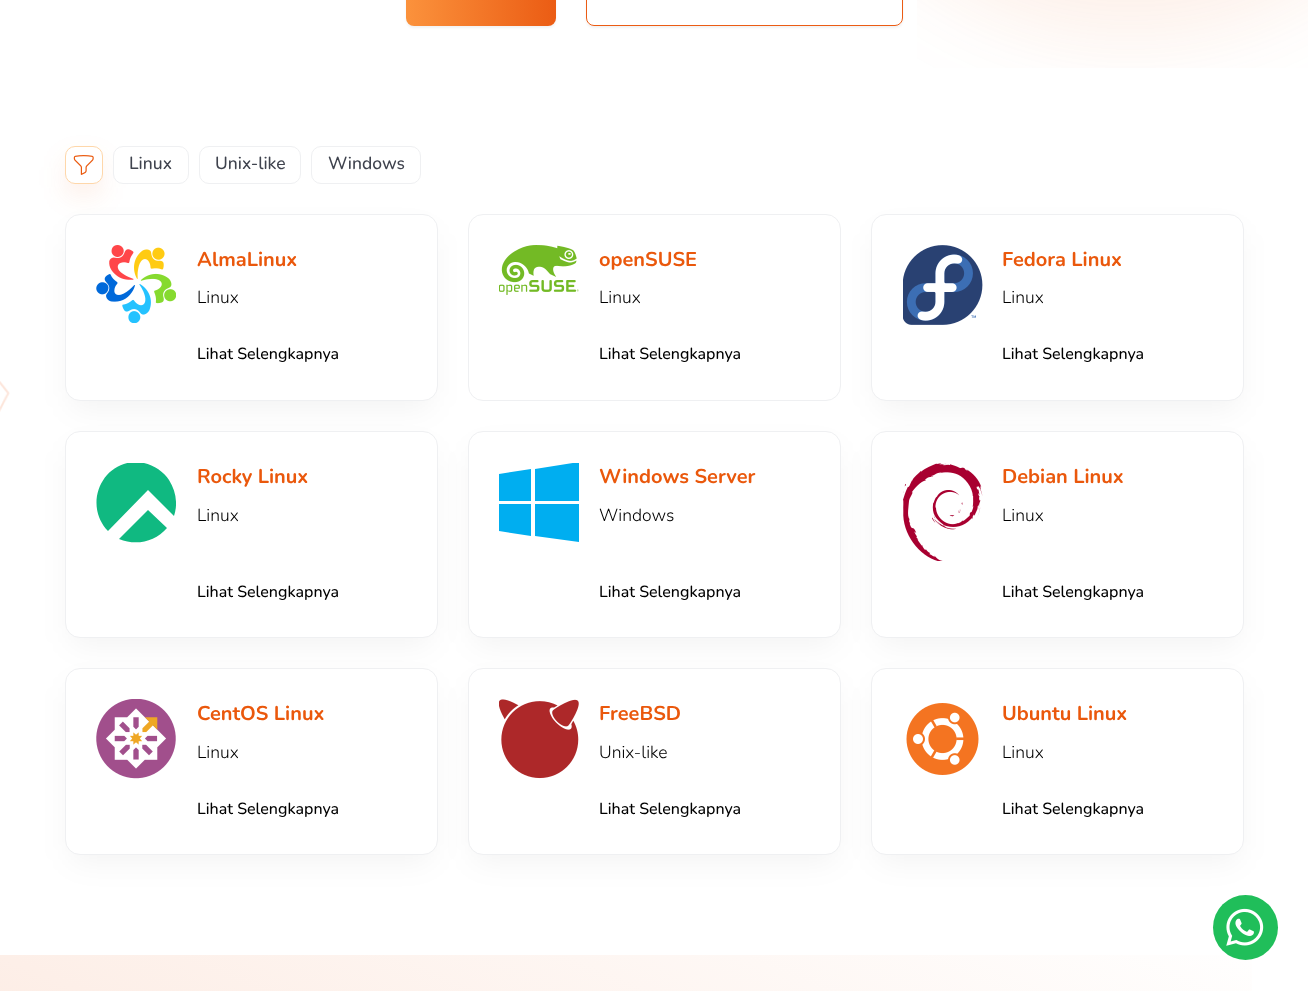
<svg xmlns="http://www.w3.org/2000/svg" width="1308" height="991">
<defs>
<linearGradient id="g1" gradientUnits="userSpaceOnUse" x1="406" y1="0" x2="556" y2="0"><stop offset="0" stop-color="#fb923c"/><stop offset="1" stop-color="#eb5c14"/></linearGradient>
<clipPath id="clip1"><path d="M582 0h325v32h-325zm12-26h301c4.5 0 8 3.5 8 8v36c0 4.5-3.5 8-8 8h-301c-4.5 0-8-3.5-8-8v-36c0-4.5 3.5-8 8-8z" clip-rule="evenodd"/></clipPath>
<clipPath id="clip2"><rect x="96" y="463" width="80" height="80"/></clipPath>
<clipPath id="clip3"><rect x="499" y="463" width="80" height="80"/></clipPath>
<linearGradient id="g2" gradientUnits="userSpaceOnUse" x1="456" y1="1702" x2="853" y2="762"><stop offset="0" stop-color="#fbded0"/><stop offset="0.5" stop-color="#fdefe8"/><stop offset="1" stop-color="#fff"/></linearGradient>
</defs>
<rect width="100%" height="100%" fill="#fff"/>
<image x="917" y="0" width="391" height="68" href="media/1.png"/>
<rect x="406" y="-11" width="150" height="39" rx="8" fill="#0000000d" filter="blur(1px)"/>
<rect x="406" y="-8" width="150" height="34" rx="8" fill="url(#g1)"/>
<g clip-path="url(#clip1)">
<rect x="586" y="-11" width="317" height="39" rx="8" fill="#0000000d" filter="blur(1px)"/>
</g>
<rect x="586.5" y="-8.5" width="316" height="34" rx="7.5" fill="none" stroke="#eb5c14"/>
<image x="0" y="381" width="10" height="31" href="media/2.png"/>
<rect x="71" y="165" width="25" height="25" rx="4" fill="#eb5c1433" filter="blur(15.5px)"/>
<rect x="65.5" y="146.5" width="37" height="37" rx="9.5" fill="#fff" stroke="#fed7aa"/>
<image x="73" y="155" width="21" height="20" href="media/3.png"/>
<rect x="113.5" y="146.5" width="75" height="37" rx="9.5" fill="#fff" stroke="#eff0f2"/>
<text x="129" y="169" style="font-family:Nunito;font-size:17.5px;font-weight:200;fill:#3f434e">Linux</text>
<rect x="199.5" y="146.5" width="101" height="37" rx="9.5" fill="none" stroke="#eff0f2"/>
<text x="215" y="169" style="font-family:Nunito;font-size:17.5px;font-weight:200;fill:#3f434e">Unix-like</text>
<rect x="311.5" y="146.5" width="109" height="37" rx="9.5" fill="none" stroke="#eff0f2"/>
<text x="328" y="169" style="font-family:Nunito;font-size:17.5px;font-weight:200;fill:#3f434e">Windows</text>
<rect x="71" y="233" width="360" height="175" rx="9" fill="#0000000d" filter="blur(15.5px)"/>
<rect x="65.5" y="214.5" width="372" height="186" rx="14.5" fill="#fff" stroke="#eff0f2"/>
<image x="96" y="245" width="80" height="78" href="media/4.png"/>
<text x="197" y="266" style="font-family:'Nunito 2';font-size:20px;font-weight:200;fill:#ea580c">AlmaLinux</text>
<text x="197" y="303" style="font-family:'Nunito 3';font-size:17.5px;font-weight:200;fill:#000">Linux</text>
<text x="197" y="359" style="font-family:Nunito;font-size:16px;font-weight:200;fill:#000">Lihat Selengkapnya</text>
<rect x="468.5" y="214.5" width="372" height="186" rx="14.5" fill="none" stroke="#eff0f2"/>
<image x="499" y="245" width="80" height="50" href="media/5.png"/>
<text x="599" y="266" style="font-family:'Nunito 2';font-size:20px;font-weight:200;fill:#ea580c">openSUSE</text>
<text x="599" y="303" style="font-family:'Nunito 3';font-size:17.5px;font-weight:200;fill:#000">Linux</text>
<text x="599" y="359" style="font-family:Nunito;font-size:16px;font-weight:200;fill:#000">Lihat Selengkapnya</text>
<rect x="878" y="233" width="360" height="175" rx="9" fill="#0000000d" filter="blur(15.5px)"/>
<rect x="871.5" y="214.5" width="372" height="186" rx="14.5" fill="#fff" stroke="#eff0f2"/>
<image x="903" y="245" width="80" height="80" href="media/6.png"/>
<text x="1002" y="266" style="font-family:'Nunito 2';font-size:20px;font-weight:200;fill:#ea580c">Fedora Linux</text>
<text x="1002" y="303" style="font-family:'Nunito 3';font-size:17.5px;font-weight:200;fill:#000">Linux</text>
<text x="1002" y="359" style="font-family:Nunito;font-size:16px;font-weight:200;fill:#000">Lihat Selengkapnya</text>
<rect x="71" y="450" width="360" height="194" rx="9" fill="#0000000d" filter="blur(15.5px)"/>
<rect x="65.5" y="431.5" width="372" height="206" rx="14.5" fill="#fff" stroke="#eff0f2"/>
<g clip-path="url(#clip2)">
<path d="M174 516c4-12 2-25-5-36c-5-8-15-15-25-17c-39-8-63 40-36 68l40-41zm-7 12l-19-18l-29 29c17 7 36 3 48-11z" fill="#10b981" fill-rule="evenodd"/>
</g>
<text x="197" y="483" style="font-family:'Nunito 2';font-size:20px;font-weight:200;fill:#ea580c">Rocky Linux</text>
<text x="197" y="521" style="font-family:'Nunito 3';font-size:17.5px;font-weight:200;fill:#000">Linux</text>
<text x="197" y="597" style="font-family:Nunito;font-size:16px;font-weight:200;fill:#000">Lihat Selengkapnya</text>
<rect x="474" y="450" width="361" height="194" rx="9" fill="#0000000d" filter="blur(15.5px)"/>
<rect x="468.5" y="431.5" width="372" height="206" rx="14.5" fill="#fff" stroke="#eff0f2"/>
<g clip-path="url(#clip3)">
<path d="M579 462l-44 7v32h44zm-48 7l-32 5v27h32zm-32 35v27l32 5v-32zm36 0v32l44 6v-38z" fill="#00aef0"/>
</g>
<text x="599" y="483" style="font-family:'Nunito 2';font-size:20px;font-weight:200;fill:#ea580c">Windows Server</text>
<text x="599" y="521" style="font-family:'Nunito 3';font-size:17.5px;font-weight:200;fill:#000">Windows</text>
<text x="599" y="597" style="font-family:Nunito;font-size:16px;font-weight:200;fill:#000">Lihat Selengkapnya</text>
<rect x="878" y="450" width="360" height="194" rx="9" fill="#0000000d" filter="blur(15.5px)"/>
<rect x="871.5" y="431.5" width="372" height="206" rx="14.5" fill="#fff" stroke="#eff0f2"/>
<image x="903" y="463" width="80" height="98" href="media/7.png"/>
<text x="1002" y="483" style="font-family:'Nunito 2';font-size:20px;font-weight:200;fill:#ea580c">Debian Linux</text>
<text x="1002" y="521" style="font-family:'Nunito 3';font-size:17.5px;font-weight:200;fill:#000">Linux</text>
<text x="1002" y="597" style="font-family:Nunito;font-size:16px;font-weight:200;fill:#000">Lihat Selengkapnya</text>
<rect x="71" y="686" width="360" height="175" rx="9" fill="#0000000d" filter="blur(15.5px)"/>
<rect x="65.5" y="668.5" width="372" height="186" rx="14.5" fill="#fff" stroke="#eff0f2"/>
<image x="96" y="699" width="80" height="80" href="media/8.png"/>
<text x="197" y="720" style="font-family:'Nunito 2';font-size:20px;font-weight:200;fill:#ea580c">CentOS Linux</text>
<text x="197" y="758" style="font-family:'Nunito 3';font-size:17.5px;font-weight:200;fill:#000">Linux</text>
<text x="197" y="814" style="font-family:Nunito;font-size:16px;font-weight:200;fill:#000">Lihat Selengkapnya</text>
<rect x="474" y="686" width="361" height="175" rx="9" fill="#0000000d" filter="blur(15.5px)"/>
<rect x="468.5" y="668.5" width="372" height="186" rx="14.5" fill="#fff" stroke="#eff0f2"/>
<image x="499" y="699" width="80" height="80" href="media/9.png"/>
<text x="599" y="720" style="font-family:'Nunito 2';font-size:20px;font-weight:200;fill:#ea580c">FreeBSD</text>
<text x="599" y="758" style="font-family:'Nunito 3';font-size:17.5px;font-weight:200;fill:#000">Unix-like</text>
<text x="599" y="814" style="font-family:Nunito;font-size:16px;font-weight:200;fill:#000">Lihat Selengkapnya</text>
<rect x="878" y="686" width="360" height="175" rx="9" fill="#0000000d" filter="blur(15.5px)"/>
<rect x="871.5" y="668.5" width="372" height="186" rx="14.5" fill="#fff" stroke="#eff0f2"/>
<image x="906" y="703" width="73" height="72" href="media/10.png"/>
<text x="1002" y="720" style="font-family:'Nunito 2';font-size:20px;font-weight:200;fill:#ea580c">Ubuntu Linux</text>
<text x="1002" y="758" style="font-family:'Nunito 3';font-size:17.5px;font-weight:200;fill:#000">Linux</text>
<text x="1002" y="814" style="font-family:Nunito;font-size:16px;font-weight:200;fill:#000">Lihat Selengkapnya</text>
<rect y="955" width="1252" height="36" fill="url(#g2)"/>
<circle cx="1245.5" cy="927.5" r="32.5" fill="#20be5a"/>
<image x="1226" y="908" width="38" height="38" href="media/11.png"/>
</svg>
